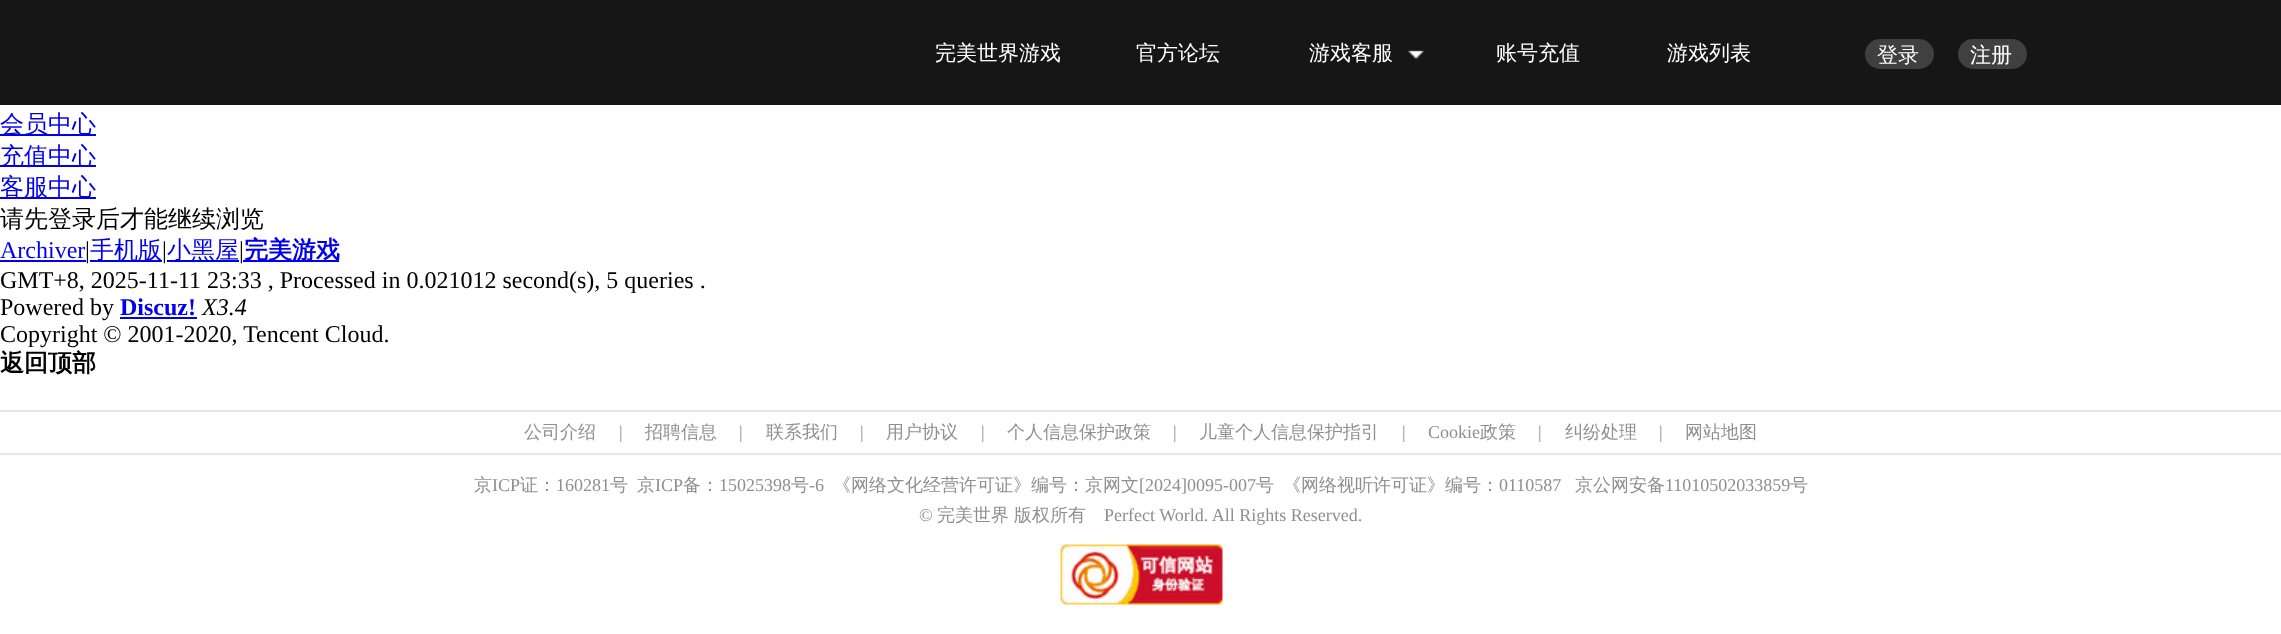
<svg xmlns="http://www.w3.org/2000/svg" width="2281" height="634">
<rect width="100%" height="100%" fill="#fff"/>
<rect width="2281" height="105" fill="#161616"/>
<text x="935" y="60" style="font-family:WenQuanYi Zen Hei;font-size:21px;font-weight:500;fill:#fff">完美世界游戏</text>
<text x="1136" y="60" style="font-family:WenQuanYi Zen Hei;font-size:21px;font-weight:500;fill:#fff">官方论坛</text>
<text x="1309" y="60" style="font-family:WenQuanYi Zen Hei;font-size:21px;font-weight:500;fill:#fff">游戏客服</text>
<image x="1408" y="50" width="16" height="9" href="media/1.png"/>
<text x="1496" y="60" style="font-family:WenQuanYi Zen Hei;font-size:21px;font-weight:500;fill:#fff">账号充值</text>
<text x="1667" y="60" style="font-family:WenQuanYi Zen Hei;font-size:21px;font-weight:500;fill:#fff">游戏列表</text>
<rect x="1865" y="39" width="69" height="30" rx="15" fill="#414040"/>
<text x="1877" y="62" style="font-family:WenQuanYi Zen Hei;font-size:21px;font-weight:500;fill:#fff">登录</text>
<rect x="1958" y="39" width="69" height="30" rx="15" fill="#414040"/>
<text x="1970" y="62" style="font-family:WenQuanYi Zen Hei;font-size:21px;font-weight:500;fill:#fff">注册</text>
<rect y="134" width="96" height="2" fill="#00e"/>
<text x="0" y="132" style="font-family:WenQuanYi Zen Hei;font-size:24px;font-weight:500;fill:#00e">会员中心</text>
<rect y="165" width="96" height="2" fill="#00e"/>
<text x="0" y="164" style="font-family:WenQuanYi Zen Hei;font-size:24px;font-weight:500;fill:#00e">充值中心</text>
<rect y="197" width="96" height="2" fill="#00e"/>
<text x="0" y="195" style="font-family:WenQuanYi Zen Hei;font-size:24px;font-weight:500;fill:#00e">客服中心</text>
<text x="0" y="227" style="font-family:WenQuanYi Zen Hei;font-size:24px;font-weight:500;fill:#000">请先登录后才能继续浏览</text>
<text x="0" y="258" style="font-family:Liberation Serif;font-size:24px;fill:#00e">Archiver</text>
<rect y="260" width="86" height="2" fill="#00e"/>
<text x="85" y="258" style="font-family:Liberation Serif;font-size:24px;fill:#000">|</text>
<rect x="90" y="260" width="72" height="2" fill="#00e"/>
<text x="90" y="258" style="font-family:WenQuanYi Zen Hei;font-size:24px;font-weight:500;fill:#00e">手机版</text>
<text x="162" y="258" style="font-family:Liberation Serif;font-size:24px;fill:#000">|</text>
<rect x="167" y="260" width="72" height="2" fill="#00e"/>
<text x="167" y="258" style="font-family:WenQuanYi Zen Hei;font-size:24px;font-weight:500;fill:#00e">小黑屋</text>
<text x="239" y="258" style="font-family:Liberation Serif;font-size:24px;fill:#000">|</text>
<rect x="243" y="260" width="96" height="2" fill="#00e"/>
<text x="244" y="258" style="font-family:WenQuanYi Zen Hei;font-size:24px;font-weight:bold;fill:#00e">完美游戏</text>
<text x="0" y="288" style="font-family:Liberation Serif;font-size:24px;fill:#000">GMT+8, 2025-11-11 23:33 , Processed in 0.021012 second(s), 5 queries .</text>
<text x="0" y="315" style="font-family:Liberation Serif;font-size:24px;fill:#000">Powered by</text>
<text x="120" y="315" style="font-family:Liberation Serif;font-size:24px;font-weight:bold;fill:#00e">Discuz!</text>
<rect x="120" y="317" width="77" height="2" fill="#00e"/>
<text x="202" y="315" style="font-family:Liberation Serif;font-size:24px;font-style:italic;fill:#000">X3.4</text>
<text x="0" y="342" style="font-family:Liberation Serif;font-size:24px;fill:#000">Copyright © 2001-2020, Tencent Cloud.</text>
<text x="0" y="371" style="font-family:WenQuanYi Zen Hei;font-size:24px;font-weight:bold;fill:#000">返回顶部</text>
<rect y="410" width="2281" height="2" fill="#e6e6e6"/>
<rect y="453" width="2281" height="2" fill="#e6e6e6"/>
<text x="524" y="438" style="font-family:WenQuanYi Zen Hei;font-size:18px;font-weight:500;fill:#8f8f8f">公司介绍</text>
<text x="619" y="438" style="font-family:Liberation Serif;font-size:18px;fill:#8f8f8f">|</text>
<text x="645" y="438" style="font-family:WenQuanYi Zen Hei;font-size:18px;font-weight:500;fill:#8f8f8f">招聘信息</text>
<text x="739" y="438" style="font-family:Liberation Serif;font-size:18px;fill:#8f8f8f">|</text>
<text x="766" y="438" style="font-family:WenQuanYi Zen Hei;font-size:18px;font-weight:500;fill:#8f8f8f">联系我们</text>
<text x="860" y="438" style="font-family:Liberation Serif;font-size:18px;fill:#8f8f8f">|</text>
<text x="886" y="438" style="font-family:WenQuanYi Zen Hei;font-size:18px;font-weight:500;fill:#8f8f8f">用户协议</text>
<text x="981" y="438" style="font-family:Liberation Serif;font-size:18px;fill:#8f8f8f">|</text>
<text x="1007" y="438" style="font-family:WenQuanYi Zen Hei;font-size:18px;font-weight:500;fill:#8f8f8f">个人信息保护政策</text>
<text x="1173" y="438" style="font-family:Liberation Serif;font-size:18px;fill:#8f8f8f">|</text>
<text x="1199" y="438" style="font-family:WenQuanYi Zen Hei;font-size:18px;font-weight:500;fill:#8f8f8f">儿童个人信息保护指引</text>
<text x="1402" y="438" style="font-family:Liberation Serif;font-size:18px;fill:#8f8f8f">|</text>
<text x="1428" y="438" style="font-family:Liberation Serif;font-size:18px;fill:#8f8f8f">Cookie</text>
<text x="1480" y="438" style="font-family:WenQuanYi Zen Hei;font-size:18px;font-weight:500;fill:#8f8f8f">政策</text>
<text x="1538" y="438" style="font-family:Liberation Serif;font-size:18px;fill:#8f8f8f">|</text>
<text x="1565" y="438" style="font-family:WenQuanYi Zen Hei;font-size:18px;font-weight:500;fill:#8f8f8f">纠纷处理</text>
<text x="1659" y="438" style="font-family:Liberation Serif;font-size:18px;fill:#8f8f8f">|</text>
<text x="1685" y="438" style="font-family:WenQuanYi Zen Hei;font-size:18px;font-weight:500;fill:#8f8f8f">网站地图</text>
<text x="474" y="491" style="font-family:WenQuanYi Zen Hei;font-size:18px;font-weight:500;fill:#8f8f8f">京</text>
<text x="492" y="491" style="font-family:Liberation Serif;font-size:18px;fill:#8f8f8f">ICP</text>
<text x="520" y="491" style="font-family:WenQuanYi Zen Hei;font-size:18px;font-weight:500;fill:#8f8f8f">证：</text>
<text x="556" y="491" style="font-family:Liberation Serif;font-size:18px;fill:#8f8f8f">160281</text>
<text x="610" y="491" style="font-family:WenQuanYi Zen Hei;font-size:18px;font-weight:500;fill:#8f8f8f">号</text>
<text x="637" y="491" style="font-family:WenQuanYi Zen Hei;font-size:18px;font-weight:500;fill:#8f8f8f">京</text>
<text x="655" y="491" style="font-family:Liberation Serif;font-size:18px;fill:#8f8f8f">ICP</text>
<text x="683" y="491" style="font-family:WenQuanYi Zen Hei;font-size:18px;font-weight:500;fill:#8f8f8f">备：</text>
<text x="719" y="491" style="font-family:Liberation Serif;font-size:18px;fill:#8f8f8f">15025398</text>
<text x="791" y="491" style="font-family:WenQuanYi Zen Hei;font-size:18px;font-weight:500;fill:#8f8f8f">号</text>
<text x="809" y="491" style="font-family:Liberation Serif;font-size:18px;fill:#8f8f8f">-6</text>
<text x="833" y="491" style="font-family:WenQuanYi Zen Hei;font-size:18px;font-weight:500;fill:#8f8f8f">《网络文化经营许可证》编号：京网文</text>
<text x="1139" y="491" style="font-family:Liberation Serif;font-size:18px;fill:#8f8f8f">[2024]0095-007</text>
<text x="1256" y="491" style="font-family:WenQuanYi Zen Hei;font-size:18px;font-weight:500;fill:#8f8f8f">号</text>
<text x="1283" y="491" style="font-family:WenQuanYi Zen Hei;font-size:18px;font-weight:500;fill:#8f8f8f">《网络视听许可证》编号：</text>
<text x="1499" y="491" style="font-family:Liberation Serif;font-size:18px;fill:#8f8f8f">0110587</text>
<text x="1575" y="491" style="font-family:WenQuanYi Zen Hei;font-size:18px;font-weight:500;fill:#8f8f8f">京公网安备</text>
<text x="1665" y="491" style="font-family:Liberation Serif;font-size:18px;fill:#8f8f8f">11010502033859</text>
<text x="1790" y="491" style="font-family:WenQuanYi Zen Hei;font-size:18px;font-weight:500;fill:#8f8f8f">号</text>
<text x="919" y="521" style="font-family:Liberation Serif;font-size:18px;fill:#8f8f8f">©</text>
<text x="937" y="521" style="font-family:WenQuanYi Zen Hei;font-size:18px;font-weight:500;fill:#8f8f8f">完美世界</text>
<text x="1014" y="521" style="font-family:WenQuanYi Zen Hei;font-size:18px;font-weight:500;fill:#8f8f8f">版权所有</text>
<text x="1104" y="521" style="font-family:Liberation Serif;font-size:18px;fill:#8f8f8f">Perfect World. All Rights Reserved.</text>
<image x="1060" y="544" width="163" height="61" href="media/2.png"/>
</svg>
